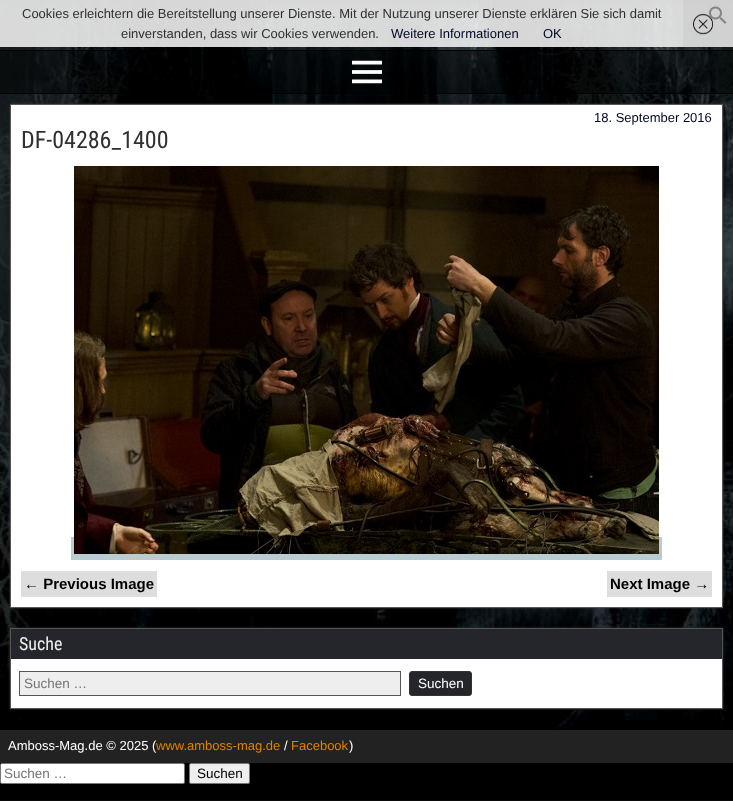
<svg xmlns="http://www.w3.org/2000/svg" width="733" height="801">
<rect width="100%" height="100%" fill="#0a0a0a"/>
<image x="0" y="0" width="733" height="800" href="media/1.png"/>
<rect width="733" height="47" fill="#eeeeeee6"/>
<text x="22" y="18" style="font-family:Liberation Sans;font-size:13px;fill:#303030">Cookies erleichtern die Bereitstellung unserer Dienste. Mit der Nutzung unserer Dienste erklären Sie sich damit</text>
<text x="121" y="38" style="font-family:Liberation Sans;font-size:13px;fill:#303030">einverstanden, dass wir Cookies verwenden.</text>
<text x="391" y="38" style="font-family:Liberation Sans;font-size:13px;fill:#000723">Weitere Informationen</text>
<text x="543" y="38" style="font-family:Liberation Sans;font-size:13px;fill:#000723">OK</text>
<rect x="683" width="50" height="47" fill="#cccccc99"/>
<image x="693" y="13" width="20" height="22" href="media/2.png"/>
<image x="709" y="6" width="18" height="18" href="media/3.png"/>
<rect y="50" width="733" height="1" fill="#000"/>
<rect y="51" width="733" height="42" fill="#00000080"/>
<rect y="93" width="733" height="1" fill="#000"/>
<image x="352" y="60" width="30" height="24" href="media/4.png"/>
<rect x="10" y="104" width="713" height="504" fill="#333" filter="blur(1px)"/>
<rect x="10.5" y="104.5" width="712" height="503" fill="#fff" stroke="#555"/>
<text x="594" y="122" style="font-family:Liberation Sans;font-size:13px;fill:#000723">18. September 2016</text>
<text x="21" y="148" style="font-family:Roboto Condensed;font-size:24px;fill:#303030">DF-04286_1400</text>
<rect x="71" y="537" width="591" height="23" fill="#b9ccd2"/>
<image x="74" y="166" width="585" height="388" href="media/5.png"/>
<rect x="21" y="571" width="136" height="26" fill="#ddd"/>
<text x="24" y="589" style="font-family:Liberation Sans;font-size:15px;font-weight:bold;fill:#000">← Previous Image</text>
<rect x="607" y="571" width="105" height="26" fill="#ddd"/>
<text x="610" y="589" style="font-family:Liberation Sans;font-size:15px;font-weight:bold;fill:#000">Next Image →</text>
<rect x="10" y="628" width="713" height="81" fill="#333" filter="blur(1px)"/>
<rect x="11" y="659" width="711" height="49" fill="#fff"/>
<rect x="10.5" y="628.5" width="712" height="80" fill="none" stroke="#555"/>
<rect x="11" y="629" width="711" height="30" fill="#25262b"/>
<text x="19" y="650" style="font-family:Roboto Condensed;font-size:18px;fill:#eee">Suche</text>
<rect x="19.5" y="671.5" width="381" height="24" fill="#eee" stroke="#555"/>
<text x="24" y="688" style="font-family:Liberation Sans;font-size:13.5px;fill:#757575">Suchen …</text>
<rect x="409.5" y="671.5" width="62" height="24" rx="2.5" fill="#25262b" stroke="#333"/>
<text x="418" y="688" style="font-family:Liberation Sans;font-size:13.5px;fill:#fff">Suchen</text>
<rect y="730" width="733" height="33" fill="#222"/>
<rect x="22" y="729" width="553" height="1" fill="#000"/>
<text x="8" y="750" style="font-family:Liberation Sans;font-size:13px;fill:#fff">Amboss-Mag.de © 2025 (</text>
<text x="156" y="750" style="font-family:Liberation Sans;font-size:13px;fill:#dc8300">www.amboss-mag.de</text>
<text x="284" y="750" style="font-family:Liberation Sans;font-size:13px;fill:#fff">/</text>
<text x="291" y="750" style="font-family:Liberation Sans;font-size:13px;fill:#dc8300">Facebook</text>
<text x="349" y="750" style="font-family:Liberation Sans;font-size:13px;fill:#fff">)</text>
<rect x="0.5" y="763.5" width="184" height="20" rx="1.5" fill="#fff" stroke="#767676"/>
<text x="4" y="778" style="font-family:Liberation Sans;font-size:13.5px;fill:#757575">Suchen …</text>
<rect x="189.5" y="763.5" width="60" height="20" rx="1.5" fill="#efefef" stroke="#767676"/>
<text x="197" y="778" style="font-family:Liberation Sans;font-size:13.5px;fill:#000">Suchen</text>
</svg>
